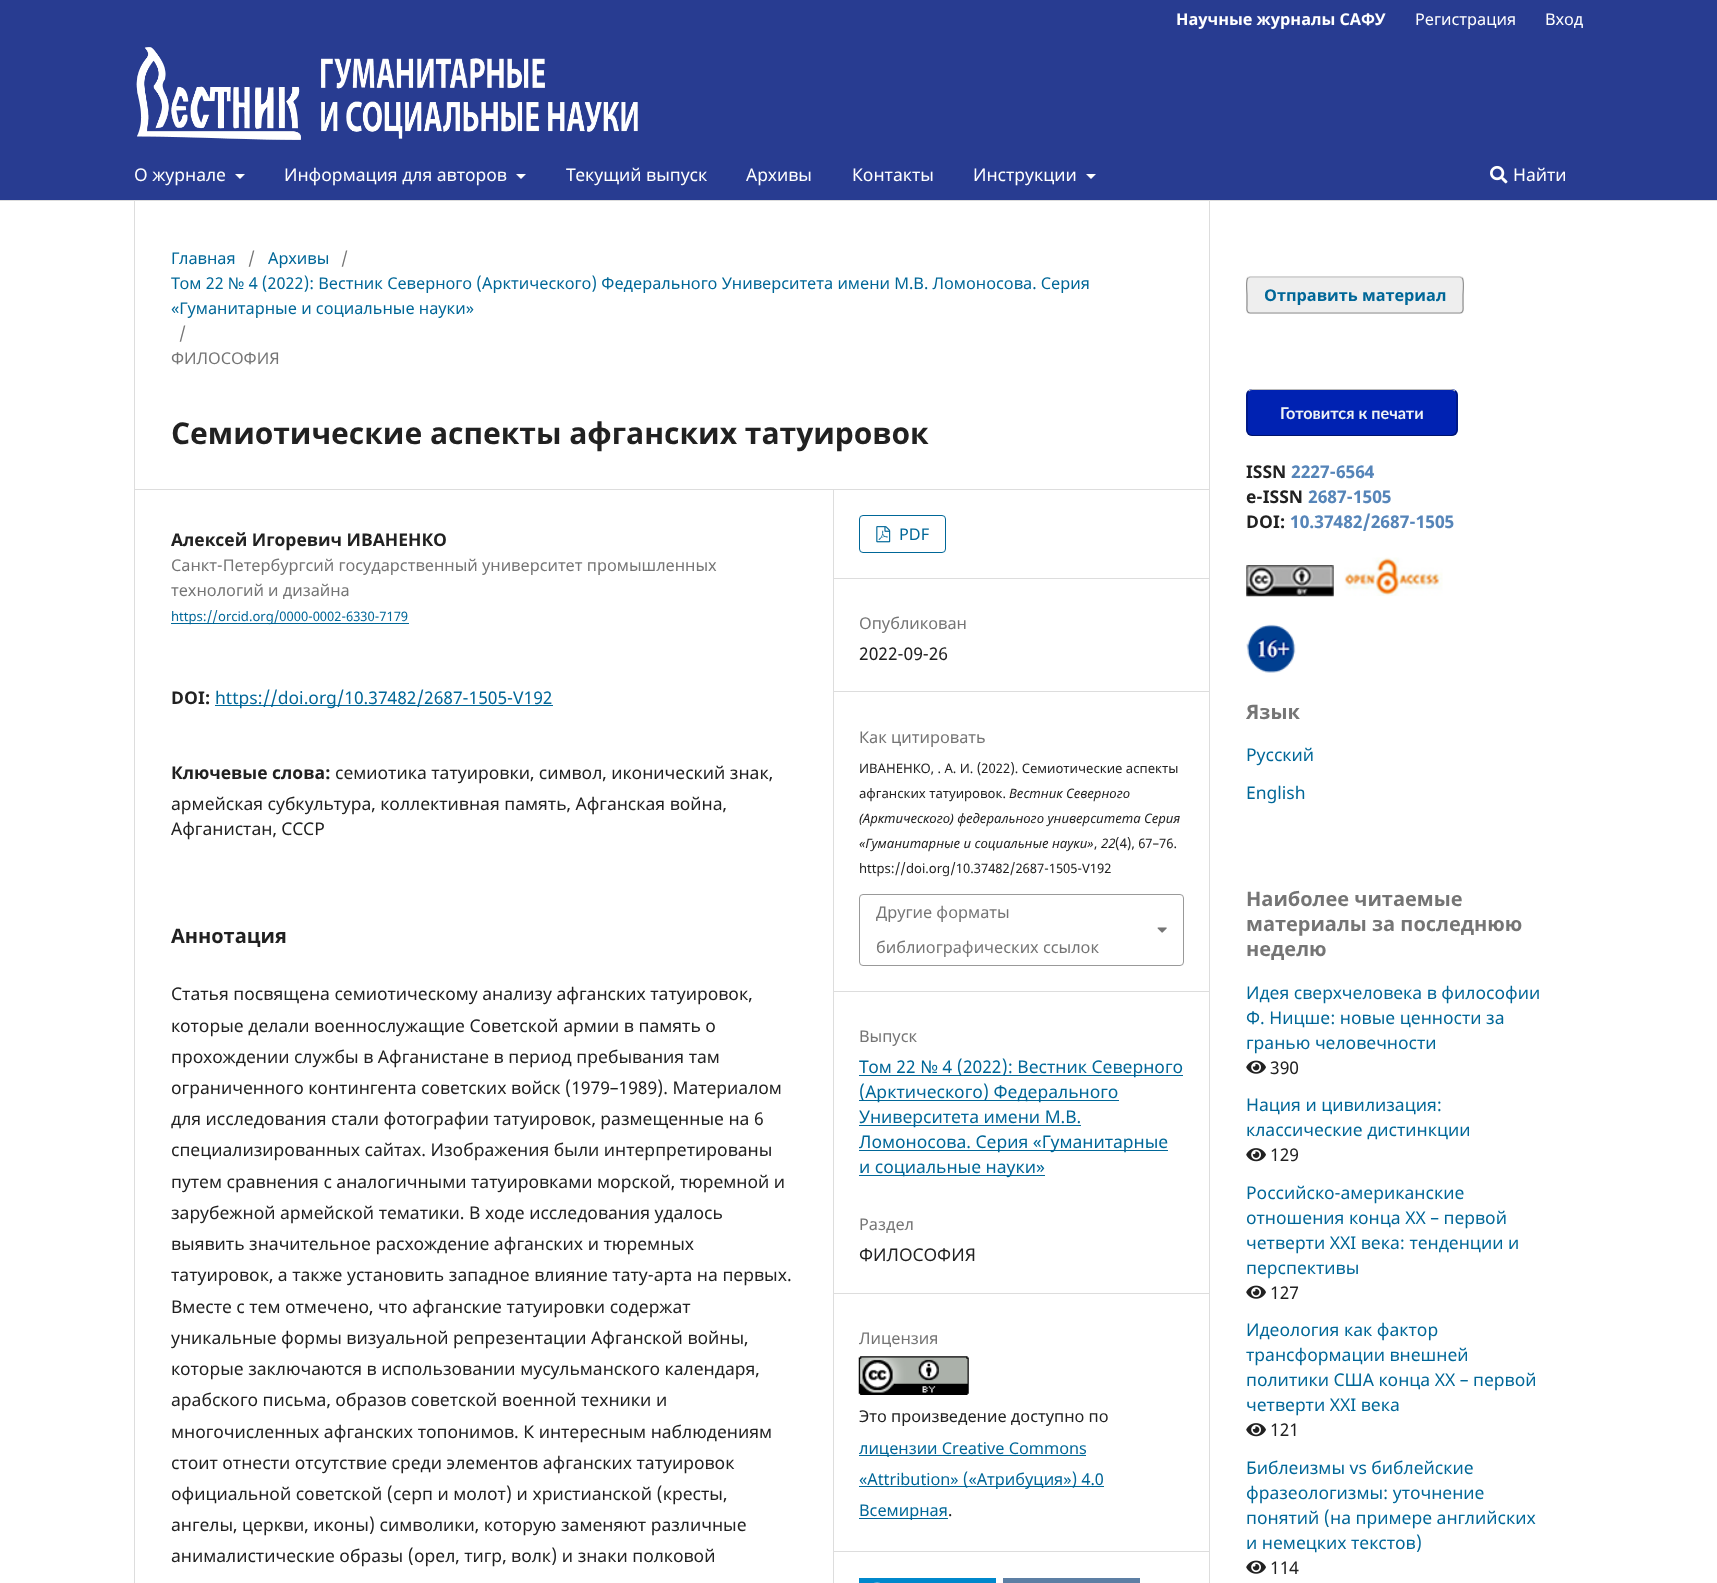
<svg xmlns="http://www.w3.org/2000/svg" width="1717" height="1583">
<rect width="100%" height="100%" fill="#fff"/>
<rect width="1717" height="200" fill="#283c91"/>
<rect y="200" width="1717" height="1" fill="#ddd"/>
<text x="1176" y="25" style="font-family:Noto Sans;font-size:16.27px;font-weight:bold;fill:#fff">Научные журналы САФУ</text>
<text x="1415" y="25" style="font-family:Noto Sans;font-size:16.27px;fill:#fff">Регистрация</text>
<text x="1545" y="25" style="font-family:Noto Sans;font-size:16.27px;fill:#fff">Вход</text>
<text x="134" y="181" style="font-family:Noto Sans;font-size:17.5px;fill:#fff">О журнале</text>
<path d="M235 174h10l-5 5z" fill="#fff"/>
<text x="284" y="181" style="font-family:Noto Sans;font-size:17.5px;fill:#fff">Информация для авторов</text>
<path d="M516 174h10l-5 5z" fill="#fff"/>
<text x="566" y="181" style="font-family:Noto Sans;font-size:17.5px;fill:#fff">Текущий выпуск</text>
<text x="746" y="181" style="font-family:Noto Sans;font-size:17.5px;fill:#fff">Архивы</text>
<text x="852" y="181" style="font-family:Noto Sans;font-size:17.5px;fill:#fff">Контакты</text>
<text x="973" y="181" style="font-family:Noto Sans;font-size:17.5px;fill:#fff">Инструкции</text>
<path d="M1086 174h10l-5 5z" fill="#fff"/>
<image x="1490" y="165" width="18" height="19" href="media/1.png"/>
<text x="1513" y="181" style="font-family:Noto Sans;font-size:17.5px;fill:#fff">Найти</text>
<image x="136" y="47" width="502" height="93" href="media/2.png"/>
<rect x="134" y="489" width="1075" height="1" fill="#ddd"/>
<rect x="134" y="201" width="1" height="1382" fill="#ddd"/>
<text x="171" y="264" style="font-family:Noto Sans;font-size:16.27px;fill:#006798">Главная</text>
<text x="248" y="264" style="font-family:Noto Sans;font-size:16.27px;fill:#757575">/</text>
<text x="268" y="264" style="font-family:Noto Sans;font-size:16.27px;fill:#006798">Архивы</text>
<text x="341" y="264" style="font-family:Noto Sans;font-size:16.27px;fill:#757575">/</text>
<text x="171" y="289" style="font-family:Noto Sans;font-size:16.27px;fill:#006798">Том 22 № 4 (2022): Вестник Северного (Арктического) Федерального Университета имени М.В. Ломоносова. Серия</text>
<text x="171" y="314" style="font-family:Noto Sans;font-size:16.27px;fill:#006798">«Гуманитарные и социальные науки»</text>
<text x="179" y="339" style="font-family:Noto Sans;font-size:16.27px;fill:#757575">/</text>
<text x="171" y="364" style="font-family:Noto Sans;font-size:16.27px;fill:#757575">ФИЛОСОФИЯ</text>
<text x="171" y="444" style="font-family:Noto Sans;font-size:30px;font-weight:bold;fill:#212121">Семиотические аспекты афганских татуировок</text>
<rect x="833" y="490" width="1" height="1093" fill="#ddd"/>
<text x="171" y="546" style="font-family:Noto Sans;font-size:17.5px;font-weight:bold;fill:#212121">Алексей Игоревич ИВАНЕНКО</text>
<text x="171" y="571" style="font-family:Noto Sans;font-size:16.27px;fill:#757575">Санкт-Петербургсий государственный университет промышленных</text>
<text x="171" y="596" style="font-family:Noto Sans;font-size:16.27px;fill:#757575">технологий и дизайна</text>
<rect x="171" y="623" width="238" height="1" fill="#006798"/>
<text x="171" y="621" style="font-family:Noto Sans;font-size:13.1px;fill:#006798">https://orcid.org/0000-0002-6330-7179</text>
<text x="171" y="704" style="font-family:Noto Sans;font-size:17.5px;font-weight:bold;fill:#212121">DOI:</text>
<rect x="215" y="705" width="338" height="1" fill="#006798"/>
<text x="215" y="704" style="font-family:Noto Sans;font-size:17.5px;fill:#006798">https://doi.org/10.37482/2687-1505-V192</text>
<text x="171" y="779" style="font-family:Noto Sans;font-size:17.5px;font-weight:bold;fill:#212121">Ключевые слова:</text>
<text x="335" y="779" style="font-family:Noto Sans;font-size:17.5px;fill:#212121">семиотика татуировки, символ, иконический знак,</text>
<text x="171" y="810" style="font-family:Noto Sans;font-size:17.5px;fill:#212121">армейская субкультура, коллективная память, Афганская война,</text>
<text x="171" y="835" style="font-family:Noto Sans;font-size:17.5px;fill:#212121">Афганистан, СССР</text>
<text x="171" y="943" style="font-family:Noto Sans;font-size:20px;font-weight:bold;fill:#212121">Аннотация</text>
<text x="171" y="1000" style="font-family:Noto Sans;font-size:17.5px;fill:#212121">Статья посвящена семиотическому анализу афганских татуировок,</text>
<text x="171" y="1032" style="font-family:Noto Sans;font-size:17.5px;fill:#212121">которые делали военнослужащие Советской армии в память о</text>
<text x="171" y="1063" style="font-family:Noto Sans;font-size:17.5px;fill:#212121">прохождении службы в Афганистане в период пребывания там</text>
<text x="171" y="1094" style="font-family:Noto Sans;font-size:17.5px;fill:#212121">ограниченного контингента советских войск (1979–1989). Материалом</text>
<text x="171" y="1125" style="font-family:Noto Sans;font-size:17.5px;fill:#212121">для исследования стали фотографии татуировок, размещенные на 6</text>
<text x="171" y="1156" style="font-family:Noto Sans;font-size:17.5px;fill:#212121">специализированных сайтах. Изображения были интерпретированы</text>
<text x="171" y="1188" style="font-family:Noto Sans;font-size:17.5px;fill:#212121">путем сравнения с аналогичными татуировками морской, тюремной и</text>
<text x="171" y="1219" style="font-family:Noto Sans;font-size:17.5px;fill:#212121">зарубежной армейской тематики. В ходе исследования удалось</text>
<text x="171" y="1250" style="font-family:Noto Sans;font-size:17.5px;fill:#212121">выявить значительное расхождение афганских и тюремных</text>
<text x="171" y="1281" style="font-family:Noto Sans;font-size:17.5px;fill:#212121">татуировок, а также установить западное влияние тату-арта на первых.</text>
<text x="171" y="1313" style="font-family:Noto Sans;font-size:17.5px;fill:#212121">Вместе с тем отмечено, что афганские татуировки содержат</text>
<text x="171" y="1344" style="font-family:Noto Sans;font-size:17.5px;fill:#212121">уникальные формы визуальной репрезентации Афганской войны,</text>
<text x="171" y="1375" style="font-family:Noto Sans;font-size:17.5px;fill:#212121">которые заключаются в использовании мусульманского календаря,</text>
<text x="171" y="1406" style="font-family:Noto Sans;font-size:17.5px;fill:#212121">арабского письма, образов советской военной техники и</text>
<text x="171" y="1438" style="font-family:Noto Sans;font-size:17.5px;fill:#212121">многочисленных афганских топонимов. К интересным наблюдениям</text>
<text x="171" y="1469" style="font-family:Noto Sans;font-size:17.5px;fill:#212121">стоит отнести отсутствие среди элементов афганских татуировок</text>
<text x="171" y="1500" style="font-family:Noto Sans;font-size:17.5px;fill:#212121">официальной советской (серп и молот) и христианской (кресты,</text>
<text x="171" y="1531" style="font-family:Noto Sans;font-size:17.5px;fill:#212121">ангелы, церкви, иконы) символики, которую заменяют различные</text>
<text x="171" y="1562" style="font-family:Noto Sans;font-size:17.5px;fill:#212121">анималистические образы (орел, тигр, волк) и знаки полковой</text>
<rect x="834" y="578" width="375" height="1" fill="#ddd"/>
<rect x="859.5" y="515.5" width="86" height="37" rx="3.5" fill="none" stroke="#006798"/>
<image x="876" y="526" width="15" height="17" href="media/3.png"/>
<text x="899" y="540" style="font-family:Noto Sans;font-size:16.27px;fill:#006798">PDF</text>
<rect x="834" y="691" width="375" height="1" fill="#ddd"/>
<text x="859" y="629" style="font-family:Noto Sans;font-size:16.27px;fill:#757575">Опубликован</text>
<text x="859" y="660" style="font-family:Noto Sans;font-size:17.5px;fill:#212121">2022-09-26</text>
<rect x="834" y="991" width="375" height="1" fill="#ddd"/>
<text x="859" y="743" style="font-family:Noto Sans;font-size:16.27px;fill:#757575">Как цитировать</text>
<text x="859" y="773" style="font-family:Noto Sans;font-size:13.1px;fill:#212121">ИВАНЕНКО, . А. И. (2022). Семиотические аспекты</text>
<text x="859" y="798" style="font-family:Noto Sans;font-size:13.1px;fill:#212121">афганских татуировок.</text>
<text x="1009" y="798" style="font-family:Noto Sans;font-size:13.1px;font-style:italic;fill:#212121">Вестник Северного</text>
<text x="859" y="823" style="font-family:Noto Sans;font-size:13.1px;font-style:italic;fill:#212121">(Арктического) федерального университета Серия</text>
<text x="859" y="848" style="font-family:Noto Sans;font-size:13.1px;font-style:italic;fill:#212121">«Гуманитарные и социальные науки»</text>
<text x="1094" y="848" style="font-family:Noto Sans;font-size:13.1px;fill:#212121">,</text>
<text x="1101" y="848" style="font-family:Noto Sans;font-size:13.1px;font-style:italic;fill:#212121">22</text>
<text x="1115" y="848" style="font-family:Noto Sans;font-size:13.1px;fill:#212121">(4), 67–76.</text>
<text x="859" y="873" style="font-family:Noto Sans;font-size:13.1px;fill:#212121">https://doi.org/10.37482/2687-1505-V192</text>
<rect x="859.5" y="894.5" width="324" height="71" rx="3.5" fill="none" stroke="#999"/>
<text x="876" y="918" style="font-family:Noto Sans;font-size:16.27px;fill:#757575">Другие форматы</text>
<image x="1157" y="927" width="10" height="6" href="media/4.png"/>
<text x="876" y="953" style="font-family:Noto Sans;font-size:16.27px;fill:#757575">библиографических ссылок</text>
<rect x="834" y="1293" width="375" height="1" fill="#ddd"/>
<text x="859" y="1042" style="font-family:Noto Sans;font-size:16.27px;fill:#757575">Выпуск</text>
<rect x="859" y="1075" width="324" height="1" fill="#006798"/>
<text x="859" y="1073" style="font-family:Noto Sans;font-size:17.5px;fill:#006798">Том 22 № 4 (2022): Вестник Северного</text>
<rect x="859" y="1100" width="260" height="1" fill="#006798"/>
<text x="859" y="1098" style="font-family:Noto Sans;font-size:17.5px;fill:#006798">(Арктического) Федерального</text>
<rect x="859" y="1125" width="222" height="1" fill="#006798"/>
<text x="859" y="1123" style="font-family:Noto Sans;font-size:17.5px;fill:#006798">Университета имени М.В.</text>
<rect x="859" y="1150" width="309" height="1" fill="#006798"/>
<text x="859" y="1148" style="font-family:Noto Sans;font-size:17.5px;fill:#006798">Ломоносова. Серия «Гуманитарные</text>
<rect x="859" y="1175" width="186" height="1" fill="#006798"/>
<text x="859" y="1173" style="font-family:Noto Sans;font-size:17.5px;fill:#006798">и социальные науки»</text>
<text x="859" y="1230" style="font-family:Noto Sans;font-size:16.27px;fill:#757575">Раздел</text>
<text x="859" y="1261" style="font-family:Noto Sans;font-size:17.5px;fill:#212121">ФИЛОСОФИЯ</text>
<rect x="834" y="1551" width="375" height="1" fill="#ddd"/>
<text x="859" y="1344" style="font-family:Noto Sans;font-size:16.27px;fill:#757575">Лицензия</text>
<image x="858" y="1356" width="111" height="39" href="media/5.png"/>
<text x="859" y="1422" style="font-family:Noto Sans;font-size:16.27px;fill:#212121">Это произведение доступно по</text>
<rect x="859" y="1455" width="227" height="1" fill="#006798"/>
<text x="859" y="1454" style="font-family:Noto Sans;font-size:16.27px;fill:#006798">лицензии Creative Commons</text>
<rect x="859" y="1486" width="245" height="1" fill="#006798"/>
<text x="859" y="1485" style="font-family:Noto Sans;font-size:16.27px;fill:#006798">«Attribution» («Атрибуция») 4.0</text>
<rect x="859" y="1518" width="89" height="1" fill="#006798"/>
<text x="859" y="1516" style="font-family:Noto Sans;font-size:16.27px;fill:#006798">Всемирная</text>
<text x="948" y="1516" style="font-family:Noto Sans;font-size:16.27px;fill:#212121">.</text>
<rect x="859" y="1578" width="137" height="5" fill="#08c"/>
<image x="874" y="1582" width="6" height="1" href="media/6.png"/>
<rect x="1003" y="1578" width="137" height="5" fill="#5d7fa4"/>
<rect x="1209" y="201" width="1" height="1382" fill="#ddd"/>
<rect x="1246" y="276" width="218" height="38" rx="4" fill="#eee"/>
<path d="M1248 278l2-1h210l2 1" fill="none" stroke="#bbb" stroke-width="1.2"/>
<path d="M1462 278c2.5 2 1 14 1 17v10c0 2.5 1 8-3 8h-210c-4 0-3-5.5-3-8v-10c0-3-1.5-15 1-17" fill="none" stroke="#8f8f8f" stroke-width="1.2"/>
<text x="1264" y="301" style="font-family:Noto Sans;font-size:16.27px;font-weight:bold;fill:#006798">Отправить материал</text>
<rect x="1246" y="389" width="212" height="47" rx="6" fill="#0022b2"/>
<path d="M1248.5 391c1-1 2.5-1.5 4-1.5h198.5c1.5 0 3 .5 4 1.5" fill="none" stroke="#bbb" stroke-width="1.2"/>
<path d="M1455 391c1.5 1 2 2.5 2 4v35c0 1.5-.5 3-2 4c-1 1-2.5 1.5-4 1.5h-198.5c-1.5 0-3-.5-4-1.5c-1-1-1.5-2.5-1.5-4v-35c0-1.5 .5-3 1.5-4" fill="none" stroke="#00000066" stroke-width="1.2"/>
<text x="1280" y="419" style="font-family:Lato;font-size:16.27px;font-weight:bold;fill:#eff3f5">Готовится к печати</text>
<text x="1246" y="478" style="font-family:Noto Sans;font-size:17.5px;font-weight:bold;fill:#212121">ISSN</text>
<text x="1291" y="478" style="font-family:Noto Sans;font-size:17.5px;font-weight:bold;fill:#5685b9">2227-6564</text>
<text x="1246" y="503" style="font-family:Noto Sans;font-size:17.5px;font-weight:bold;fill:#212121">e-ISSN</text>
<text x="1308" y="503" style="font-family:Noto Sans;font-size:17.5px;font-weight:bold;fill:#5685b9">2687-1505</text>
<text x="1246" y="528" style="font-family:Noto Sans;font-size:17.5px;font-weight:bold;fill:#212121">DOI:</text>
<text x="1290" y="528" style="font-family:Noto Sans;font-size:17.5px;font-weight:bold;fill:#5685b9">10.37482/2687-1505</text>
<image x="1246" y="565" width="88" height="32" href="media/7.png"/>
<image x="1344" y="557" width="99" height="39" href="media/8.png"/>
<image x="1246" y="624" width="50" height="49" href="media/9.png"/>
<text x="1246" y="719" style="font-family:Noto Sans;font-size:20px;font-weight:bold;fill:#757575">Язык</text>
<text x="1246" y="761" style="font-family:Noto Sans;font-size:17.5px;fill:#006798">Русский</text>
<text x="1246" y="799" style="font-family:Noto Sans;font-size:17.5px;fill:#006798">English</text>
<text x="1246" y="906" style="font-family:Noto Sans;font-size:20px;font-weight:bold;fill:#757575">Наиболее читаемые</text>
<text x="1246" y="931" style="font-family:Noto Sans;font-size:20px;font-weight:bold;fill:#757575">материалы за последнюю</text>
<text x="1246" y="956" style="font-family:Noto Sans;font-size:20px;font-weight:bold;fill:#757575">неделю</text>
<text x="1246" y="999" style="font-family:Noto Sans;font-size:17.5px;fill:#006798">Идея сверхчеловека в философии</text>
<text x="1246" y="1024" style="font-family:Noto Sans;font-size:17.5px;fill:#006798">Ф. Ницше: новые ценности за</text>
<text x="1246" y="1049" style="font-family:Noto Sans;font-size:17.5px;fill:#006798">гранью человечности</text>
<image x="1246" y="1060" width="20" height="14" href="media/10.png"/>
<text x="1270" y="1074" style="font-family:Noto Sans;font-size:17.5px;fill:#212121">390</text>
<text x="1246" y="1111" style="font-family:Noto Sans;font-size:17.5px;fill:#006798">Нация и цивилизация:</text>
<text x="1246" y="1136" style="font-family:Noto Sans;font-size:17.5px;fill:#006798">классические дистинкции</text>
<image x="1246" y="1148" width="20" height="14" href="media/11.png"/>
<text x="1270" y="1161" style="font-family:Noto Sans;font-size:17.5px;fill:#212121">129</text>
<text x="1246" y="1199" style="font-family:Noto Sans;font-size:17.5px;fill:#006798">Российско-американские</text>
<text x="1246" y="1224" style="font-family:Noto Sans;font-size:17.5px;fill:#006798">отношения конца XX – первой</text>
<text x="1246" y="1249" style="font-family:Noto Sans;font-size:17.5px;fill:#006798">четверти XXI века: тенденции и</text>
<text x="1246" y="1274" style="font-family:Noto Sans;font-size:17.5px;fill:#006798">перспективы</text>
<image x="1246" y="1285" width="20" height="14" href="media/10.png"/>
<text x="1270" y="1299" style="font-family:Noto Sans;font-size:17.5px;fill:#212121">127</text>
<text x="1246" y="1336" style="font-family:Noto Sans;font-size:17.5px;fill:#006798">Идеология как фактор</text>
<text x="1246" y="1361" style="font-family:Noto Sans;font-size:17.5px;fill:#006798">трансформации внешней</text>
<text x="1246" y="1386" style="font-family:Noto Sans;font-size:17.5px;fill:#006798">политики США конца XX – первой</text>
<text x="1246" y="1411" style="font-family:Noto Sans;font-size:17.5px;fill:#006798">четверти XXI века</text>
<image x="1246" y="1423" width="20" height="14" href="media/11.png"/>
<text x="1270" y="1436" style="font-family:Noto Sans;font-size:17.5px;fill:#212121">121</text>
<text x="1246" y="1474" style="font-family:Noto Sans;font-size:17.5px;fill:#006798">Библеизмы vs библейские</text>
<text x="1246" y="1499" style="font-family:Noto Sans;font-size:17.5px;fill:#006798">фразеологизмы: уточнение</text>
<text x="1246" y="1524" style="font-family:Noto Sans;font-size:17.5px;fill:#006798">понятий (на примере английских</text>
<text x="1246" y="1549" style="font-family:Noto Sans;font-size:17.5px;fill:#006798">и немецких текстов)</text>
<image x="1246" y="1560" width="20" height="14" href="media/10.png"/>
<text x="1270" y="1574" style="font-family:Noto Sans;font-size:17.5px;fill:#212121">114</text>
</svg>
